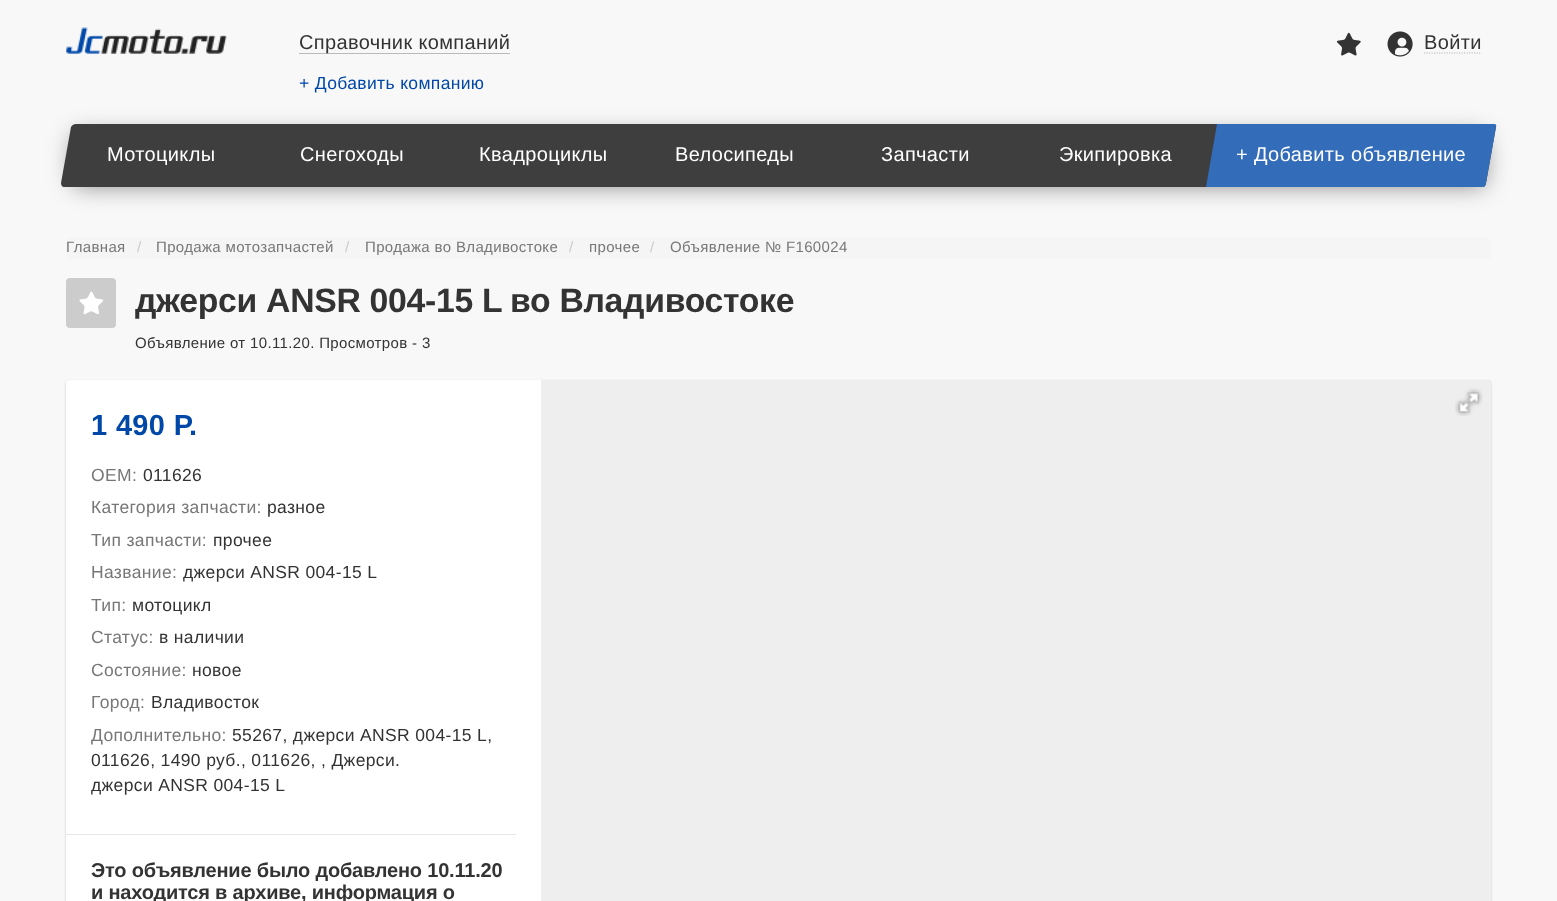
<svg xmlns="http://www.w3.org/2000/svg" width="1557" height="901">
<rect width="100%" height="100%" fill="#f8f8f8"/>
<image x="66" y="27" width="161" height="27" href="media/1.png"/>
<rect x="299" y="53" width="211" height="1" fill="#bababa"/>
<text x="299" y="49" style="font-family:Liberation Sans;font-size:20px;letter-spacing:0.35px;fill:#333">Справочник компаний</text>
<text x="299" y="89" style="font-family:Liberation Sans;font-size:17.5px;letter-spacing:0.35px;fill:#0048a8">+ Добавить компанию</text>
<image x="1336" y="32" width="25" height="24" href="media/2.png"/>
<image x="1387" y="31" width="26" height="26" href="media/3.png"/>
<text x="1424" y="49" style="font-family:Liberation Sans;font-size:20px;letter-spacing:0.35px;fill:#333">Войти</text>
<path d="M1424 53h57" fill="none" stroke="#bababa" stroke-width="1.2" stroke-dasharray="1.25 1.25"/>
<rect x="74" y="136" width="1410" height="49" fill="#00000080" filter="blur(12.5px)"/>
<path d="M76 124h1417c2 0 4 1 3 3l-10 56c0 2-2 4-4 4h-1418c-2 0-3-2-3-4l10-56c1-2 3-3 5-3z" fill="#3e3e3e"/>
<text x="107" y="161" style="font-family:Liberation Sans;font-size:20px;letter-spacing:0.35px;fill:#fff">Мотоциклы</text>
<text x="300" y="161" style="font-family:Liberation Sans;font-size:20px;letter-spacing:0.35px;fill:#fff">Снегоходы</text>
<text x="479" y="161" style="font-family:Liberation Sans;font-size:20px;letter-spacing:0.35px;fill:#fff">Квадроциклы</text>
<text x="675" y="161" style="font-family:Liberation Sans;font-size:20px;letter-spacing:0.35px;fill:#fff">Велосипеды</text>
<text x="881" y="161" style="font-family:Liberation Sans;font-size:20px;letter-spacing:0.35px;fill:#fff">Запчасти</text>
<text x="1059" y="161" style="font-family:Liberation Sans;font-size:20px;letter-spacing:0.35px;fill:#fff">Экипировка</text>
<path d="M1217 124h278c1 1 1 2 1 3l-10 56c0 2-1 4-3 4h-277z" fill="#336cb9"/>
<text x="1236" y="161" style="font-family:Liberation Sans;font-size:20px;letter-spacing:0.35px;fill:#fff">+ Добавить объявление</text>
<rect x="66" y="238" width="1425" height="21" rx="4" fill="#f5f5f5"/>
<text x="66" y="252" style="font-family:Liberation Sans;font-size:15px;letter-spacing:0.35px;fill:#777">Главная</text>
<text x="137" y="252" style="font-family:Liberation Sans;font-size:15px;letter-spacing:0.35px;fill:#ccc">/</text>
<text x="156" y="252" style="font-family:Liberation Sans;font-size:15px;letter-spacing:0.35px;fill:#777">Продажа мотозапчастей</text>
<text x="345" y="252" style="font-family:Liberation Sans;font-size:15px;letter-spacing:0.35px;fill:#ccc">/</text>
<text x="365" y="252" style="font-family:Liberation Sans;font-size:15px;letter-spacing:0.35px;fill:#777">Продажа во Владивостоке</text>
<text x="569" y="252" style="font-family:Liberation Sans;font-size:15px;letter-spacing:0.35px;fill:#ccc">/</text>
<text x="589" y="252" style="font-family:Liberation Sans;font-size:15px;letter-spacing:0.35px;fill:#777">прочее</text>
<text x="650" y="252" style="font-family:Liberation Sans;font-size:15px;letter-spacing:0.35px;fill:#ccc">/</text>
<text x="670" y="252" style="font-family:Liberation Sans;font-size:15px;letter-spacing:0.35px;fill:#777">Объявление № F160024</text>
<rect x="66" y="278" width="50" height="50" rx="4" fill="#ccc"/>
<image x="79" y="291" width="25" height="24" href="media/4.png"/>
<text x="135" y="312" style="font-family:Liberation Sans;font-size:33.75px;font-weight:bold;letter-spacing:-0.3px;fill:#333">джерси ANSR 004-15 L</text>
<text x="510" y="312" style="font-family:Liberation Sans;font-size:33.75px;font-weight:bold;letter-spacing:-0.3px;fill:#333">во Владивостоке</text>
<text x="135" y="348" style="font-family:Liberation Sans;font-size:15px;letter-spacing:0.35px;fill:#333">Объявление от 10.11.20. Просмотров - 3</text>
<rect x="66" y="381" width="1425" height="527" rx="4" fill="#00000033" filter="blur(1px)"/>
<rect x="66" y="380" width="1425" height="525" rx="4" fill="#fff"/>
<text x="91" y="435" style="font-family:Liberation Sans;font-size:29px;font-weight:bold;letter-spacing:0.35px;fill:#0048a8">1 490 Р.</text>
<text x="91" y="481" style="font-family:Liberation Sans;font-size:17.5px;letter-spacing:0.35px;fill:#777">OEM:</text>
<text x="143" y="481" style="font-family:Liberation Sans;font-size:17.5px;letter-spacing:0.35px;fill:#333">011626</text>
<text x="91" y="513" style="font-family:Liberation Sans;font-size:17.5px;letter-spacing:0.35px;fill:#777">Категория запчасти:</text>
<text x="267" y="513" style="font-family:Liberation Sans;font-size:17.5px;letter-spacing:0.35px;fill:#333">разное</text>
<text x="91" y="546" style="font-family:Liberation Sans;font-size:17.5px;letter-spacing:0.35px;fill:#777">Тип запчасти:</text>
<text x="213" y="546" style="font-family:Liberation Sans;font-size:17.5px;letter-spacing:0.35px;fill:#333">прочее</text>
<text x="91" y="578" style="font-family:Liberation Sans;font-size:17.5px;letter-spacing:0.35px;fill:#777">Название:</text>
<text x="183" y="578" style="font-family:Liberation Sans;font-size:17.5px;letter-spacing:0.35px;fill:#333">джерси ANSR 004-15 L</text>
<text x="91" y="611" style="font-family:Liberation Sans;font-size:17.5px;letter-spacing:0.35px;fill:#777">Тип:</text>
<text x="132" y="611" style="font-family:Liberation Sans;font-size:17.5px;letter-spacing:0.35px;fill:#333">мотоцикл</text>
<text x="91" y="643" style="font-family:Liberation Sans;font-size:17.5px;letter-spacing:0.35px;fill:#777">Статус:</text>
<text x="159" y="643" style="font-family:Liberation Sans;font-size:17.5px;letter-spacing:0.35px;fill:#333">в наличии</text>
<text x="91" y="676" style="font-family:Liberation Sans;font-size:17.5px;letter-spacing:0.35px;fill:#777">Состояние:</text>
<text x="192" y="676" style="font-family:Liberation Sans;font-size:17.5px;letter-spacing:0.35px;fill:#333">новое</text>
<text x="91" y="708" style="font-family:Liberation Sans;font-size:17.5px;letter-spacing:0.35px;fill:#777">Город:</text>
<text x="151" y="708" style="font-family:Liberation Sans;font-size:17.5px;letter-spacing:0.35px;fill:#333">Владивосток</text>
<text x="91" y="741" style="font-family:Liberation Sans;font-size:17.5px;letter-spacing:0.35px;fill:#777">Дополнительно:</text>
<text x="232" y="741" style="font-family:Liberation Sans;font-size:17.5px;letter-spacing:0.35px;fill:#333">55267, джерси ANSR 004-15 L,</text>
<text x="91" y="766" style="font-family:Liberation Sans;font-size:17.5px;letter-spacing:0.35px;fill:#333">011626, 1490 руб., 011626, , Джерси.</text>
<text x="91" y="791" style="font-family:Liberation Sans;font-size:17.5px;letter-spacing:0.35px;fill:#333">джерси ANSR 004-15 L</text>
<rect x="66" y="834" width="450" height="1" fill="#e6e6e6"/>
<text x="91" y="877" style="font-family:Liberation Sans;font-size:20px;font-weight:bold;letter-spacing:-0.2px;fill:#333">Это объявление было добавлено 10.11.20</text>
<text x="91" y="899" style="font-family:Liberation Sans;font-size:20px;font-weight:bold;letter-spacing:-0.2px;fill:#333">и находится в архиве, информация о</text>
<rect x="541" y="380" width="950" height="521" fill="#eee"/>
<image x="1455" y="388" width="28" height="28" href="media/5.png"/>
</svg>
